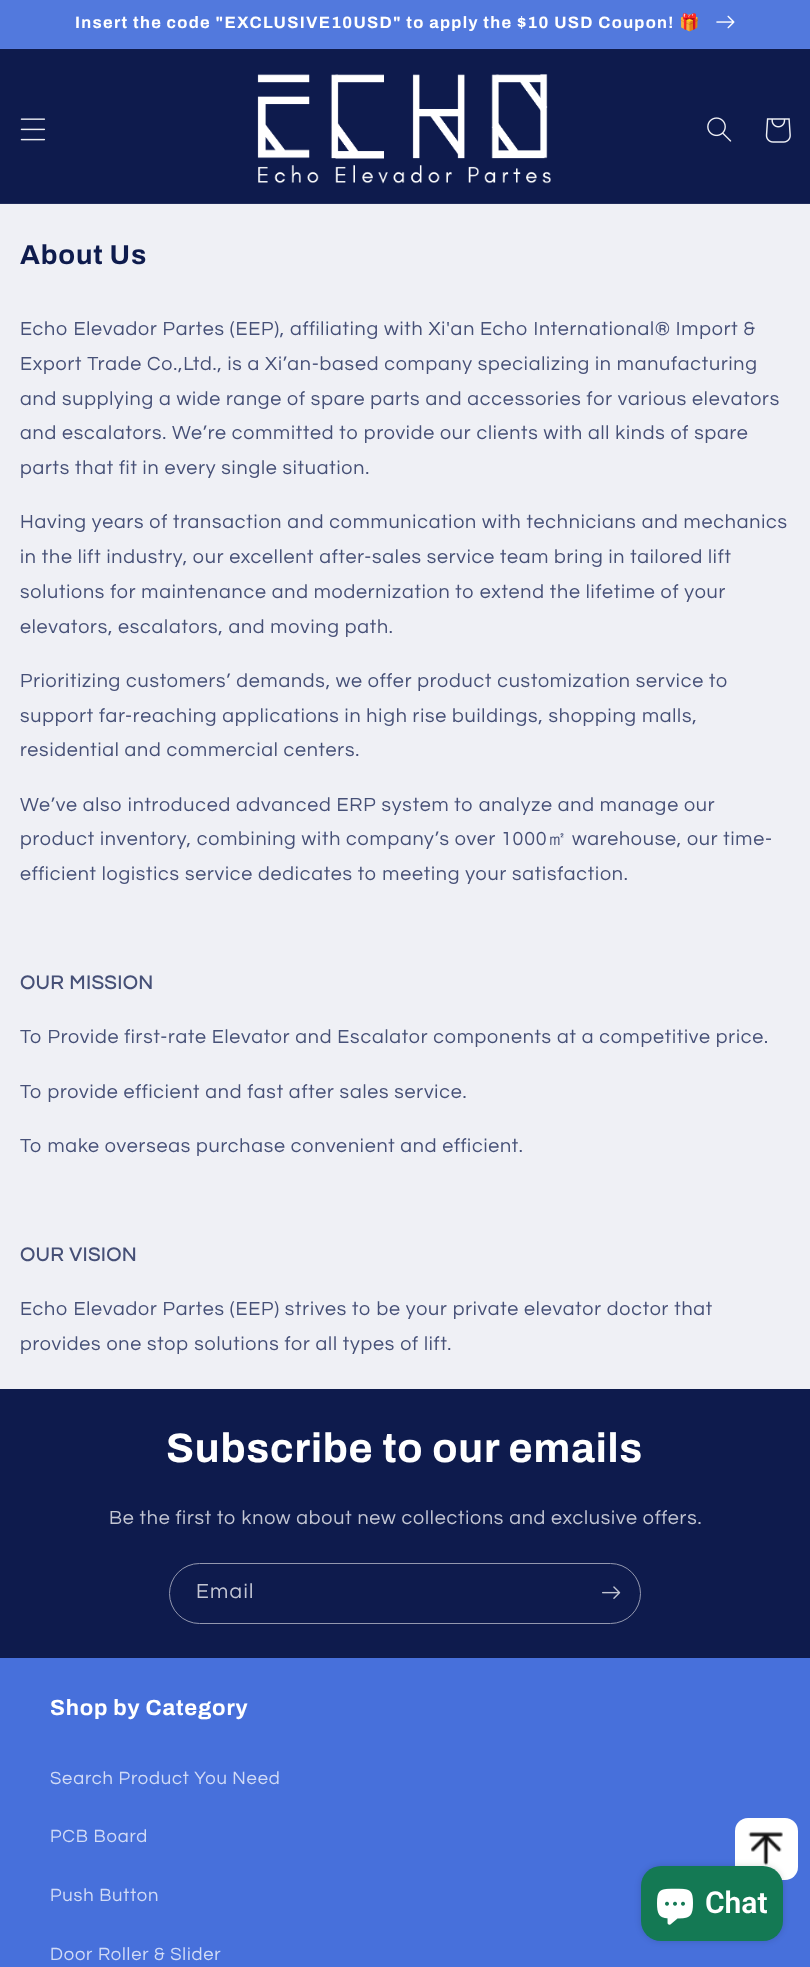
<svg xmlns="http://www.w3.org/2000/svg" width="810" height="1967">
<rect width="100%" height="100%" fill="#eff0f5"/>
<rect y="48" width="810" height="1" fill="#567bde"/>
<rect width="810" height="48" fill="#5279dd"/>
<text x="75" y="28" style="font-family:Archivo;font-size:16.5px;font-weight:bold;letter-spacing:1.3px;fill:#fff">Insert the code "EXCLUSIVE10USD" to apply the $10 USD Coupon!</text>
<text x="679" y="28" style="font-family:Noto Color Emoji;font-size:16.5px;font-weight:bold;letter-spacing:1.3px;fill:#fff">🎁</text>
<image x="716" y="15" width="19" height="14" href="media/1.png"/>
<rect y="49" width="810" height="154" fill="#0e1b4d"/>
<rect y="203" width="810" height="1" fill="#202c5a"/>
<image x="20" y="118" width="26" height="23" href="media/2.png"/>
<image x="257" y="74" width="294" height="110" href="media/3.png"/>
<image x="707" y="117" width="25" height="25" href="media/4.png"/>
<image x="765" y="118" width="26" height="25" href="media/5.png"/>
<text x="20" y="264" style="font-family:Archivo;font-size:27.5px;font-weight:bold;letter-spacing:0.8px;fill:#0e1b4d">About Us</text>
<text x="20" y="335" style="font-family:Questrial;font-size:19.7px;letter-spacing:0.8px;fill:#465077">Echo Elevador Partes (EEP), affiliating with Xi'an Echo International® Import &amp;</text>
<text x="20" y="370" style="font-family:Questrial;font-size:19.7px;letter-spacing:0.8px;fill:#465077">Export Trade Co.,Ltd., is a Xi’an-based company specializing in manufacturing</text>
<text x="20" y="405" style="font-family:Questrial;font-size:19.7px;letter-spacing:0.8px;fill:#465077">and supplying a wide range of spare parts and accessories for various elevators</text>
<text x="20" y="439" style="font-family:Questrial;font-size:19.7px;letter-spacing:0.8px;fill:#465077">and escalators. We’re committed to provide our clients with all kinds of spare</text>
<text x="20" y="474" style="font-family:Questrial;font-size:19.7px;letter-spacing:0.8px;fill:#465077">parts that fit in every single situation.</text>
<text x="20" y="528" style="font-family:Questrial;font-size:19.7px;letter-spacing:0.8px;fill:#465077">Having years of transaction and communication with technicians and mechanics</text>
<text x="20" y="563" style="font-family:Questrial;font-size:19.7px;letter-spacing:0.8px;fill:#465077">in the lift industry, our excellent after-sales service team bring in tailored lift</text>
<text x="20" y="598" style="font-family:Questrial;font-size:19.7px;letter-spacing:0.8px;fill:#465077">solutions for maintenance and modernization to extend the lifetime of your</text>
<text x="20" y="633" style="font-family:Questrial;font-size:19.7px;letter-spacing:0.8px;fill:#465077">elevators, escalators, and moving path.</text>
<text x="20" y="687" style="font-family:Questrial;font-size:19.7px;letter-spacing:0.8px;fill:#465077">Prioritizing customers’ demands, we offer product customization service to</text>
<text x="20" y="722" style="font-family:Questrial;font-size:19.7px;letter-spacing:0.8px;fill:#465077">support far-reaching applications in high rise buildings, shopping malls,</text>
<text x="20" y="756" style="font-family:Questrial;font-size:19.7px;letter-spacing:0.8px;fill:#465077">residential and commercial centers.</text>
<text x="20" y="811" style="font-family:Questrial;font-size:19.7px;letter-spacing:0.8px;fill:#465077">We’ve also introduced advanced ERP system to analyze and manage our</text>
<text x="20" y="845" style="font-family:Questrial;font-size:19.7px;letter-spacing:0.8px;fill:#465077">product inventory, combining with company’s over 1000</text>
<text x="547" y="845" style="font-family:WenQuanYi Zen Hei;font-size:19.7px;font-weight:500;letter-spacing:0.8px;fill:#465077">㎡</text>
<text x="572" y="845" style="font-family:Questrial;font-size:19.7px;letter-spacing:0.8px;fill:#465077">warehouse, our time-</text>
<text x="20" y="880" style="font-family:Questrial;font-size:19.7px;letter-spacing:0.8px;fill:#465077">efficient logistics service dedicates to meeting your satisfaction.</text>
<text x="20" y="989" style="font-family:Questrial;font-size:19.7px;font-weight:bold;letter-spacing:0.8px;fill:#465077">OUR MISSION</text>
<text x="20" y="1043" style="font-family:Questrial;font-size:19.7px;letter-spacing:0.8px;fill:#465077">To Provide first-rate Elevator and Escalator components at a competitive price.</text>
<text x="20" y="1098" style="font-family:Questrial;font-size:19.7px;letter-spacing:0.8px;fill:#465077">To provide efficient and fast after sales service.</text>
<text x="20" y="1152" style="font-family:Questrial;font-size:19.7px;letter-spacing:0.8px;fill:#465077">To make overseas purchase convenient and efficient.</text>
<text x="20" y="1261" style="font-family:Questrial;font-size:19.7px;font-weight:bold;letter-spacing:0.8px;fill:#465077">OUR VISION</text>
<text x="20" y="1315" style="font-family:Questrial;font-size:19.7px;letter-spacing:0.8px;fill:#465077">Echo Elevador Partes (EEP) strives to be your private elevator doctor that</text>
<text x="20" y="1350" style="font-family:Questrial;font-size:19.7px;letter-spacing:0.8px;fill:#465077">provides one stop solutions for all types of lift.</text>
<rect y="1389" width="810" height="269" fill="#0e1b4d"/>
<text x="166" y="1462" style="font-family:Archivo;font-size:41.25px;font-weight:bold;letter-spacing:0.8px;fill:#fff">Subscribe to our emails</text>
<text x="109" y="1524" style="font-family:Questrial;font-size:19.7px;letter-spacing:0.8px;fill:#c3c6d3">Be the first to know about new collections and exclusive offers.</text>
<rect x="169.5" y="1563.5" width="471" height="60" rx="30" fill="none" stroke="#9398af"/>
<text x="196" y="1598" style="font-family:Questrial;font-size:21px;letter-spacing:1.3px;fill:#c3c6d3">Email</text>
<image x="602" y="1586" width="19" height="13" href="media/6.png"/>
<rect y="1658" width="810" height="309" fill="#4770db"/>
<text x="50" y="1715" style="font-family:Archivo;font-size:22px;font-weight:bold;letter-spacing:0.8px;fill:#fff">Shop by Category</text>
<text x="50" y="1784" style="font-family:Questrial;font-size:18.4px;letter-spacing:0.8px;fill:#d1dbf6">Search Product You Need</text>
<text x="50" y="1842" style="font-family:Questrial;font-size:18.4px;letter-spacing:0.8px;fill:#d1dbf6">PCB Board</text>
<text x="50" y="1901" style="font-family:Questrial;font-size:18.4px;letter-spacing:0.8px;fill:#d1dbf6">Push Button</text>
<text x="50" y="1960" style="font-family:Questrial;font-size:18.4px;letter-spacing:0.8px;fill:#d1dbf6">Door Roller &amp; Slider</text>
<rect x="735" y="1818" width="63" height="62" rx="13" fill="#fff"/>
<image x="748" y="1831" width="35" height="35" href="media/7.png"/>
<rect x="641" y="1866" width="142" height="75" rx="20" fill="#00000026" filter="blur(3px)"/>
<rect x="641" y="1866" width="142" height="75" rx="20" fill="#147954"/>
<image x="657" y="1888" width="36" height="37" href="media/8.png"/>
<text x="705" y="1913" style="font-family:Roboto;font-size:30px;font-weight:600;fill:#fff">Chat</text>
</svg>
